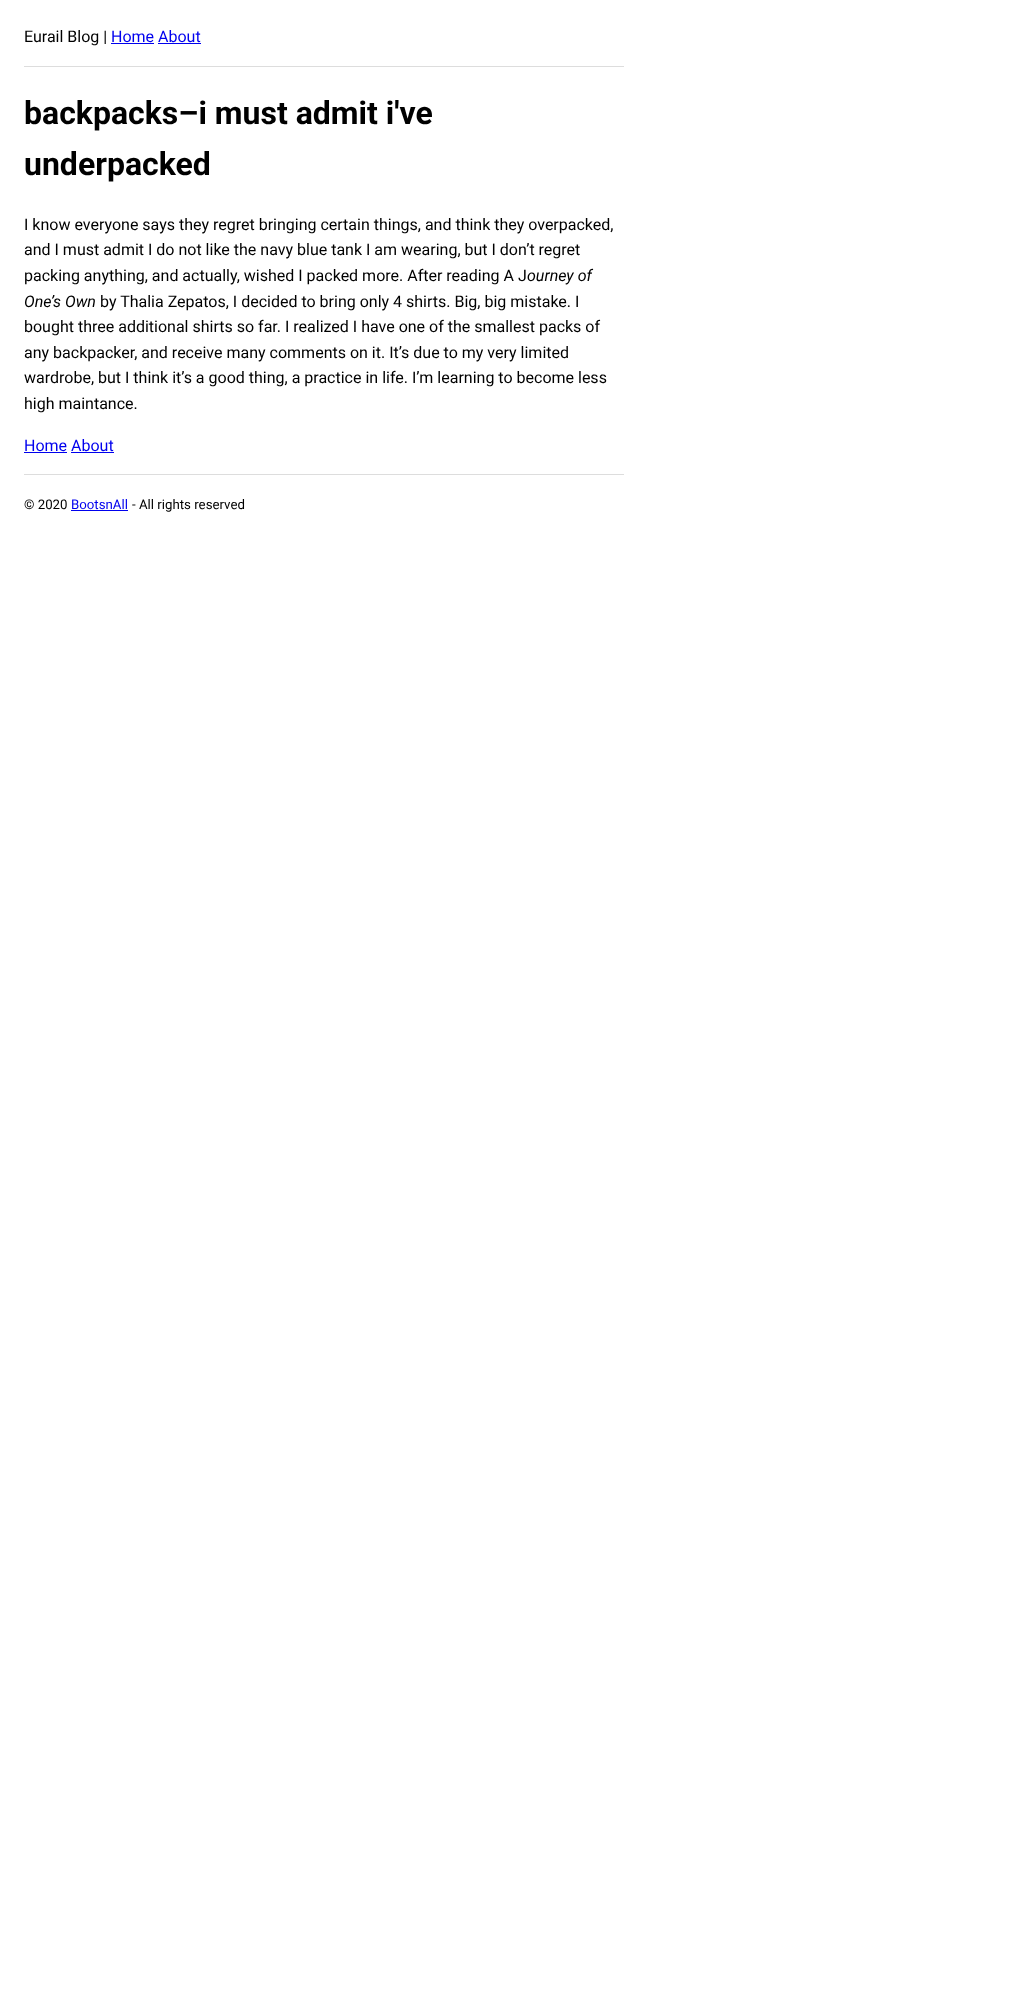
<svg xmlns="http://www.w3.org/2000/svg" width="1016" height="2004">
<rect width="100%" height="100%" fill="#fff"/>
<text x="24" y="42" style="font-family:Roboto;font-size:16px;fill:#000">Eurail Blog |</text>
<text x="111" y="42" style="font-family:Roboto;font-size:16px;fill:#00e">Home About</text>
<rect x="111" y="43" width="43" height="1" fill="#00e"/>
<rect x="158" y="43" width="43" height="1" fill="#00e"/>
<rect x="24" y="66" width="600" height="1" fill="#ddd"/>
<text x="24" y="124" style="font-family:Roboto;font-size:32px;font-weight:bold;fill:#000">backpacks–i must admit i've</text>
<text x="24" y="175" style="font-family:Roboto;font-size:32px;font-weight:bold;fill:#000">underpacked</text>
<text x="24" y="230" style="font-family:Roboto;font-size:16px;fill:#000">I know everyone says they regret bringing certain things, and think they overpacked,</text>
<text x="24" y="255" style="font-family:Roboto;font-size:16px;fill:#000">and I must admit I do not like the navy blue tank I am wearing, but I don’t regret</text>
<text x="24" y="281" style="font-family:Roboto;font-size:16px;fill:#000">packing anything, and actually, wished I packed more. After reading A J</text>
<text x="527" y="281" style="font-family:Roboto;font-size:16px;font-style:italic;fill:#000">ourney of</text>
<text x="24" y="307" style="font-family:Roboto;font-size:16px;font-style:italic;fill:#000">One’s Own</text>
<text x="100" y="307" style="font-family:Roboto;font-size:16px;fill:#000">by Thalia Zepatos, I decided to bring only 4 shirts. Big, big mistake. I</text>
<text x="24" y="332" style="font-family:Roboto;font-size:16px;fill:#000">bought three additional shirts so far. I realized I have one of the smallest packs of</text>
<text x="24" y="358" style="font-family:Roboto;font-size:16px;fill:#000">any backpacker, and receive many comments on it. It’s due to my very limited</text>
<text x="24" y="383" style="font-family:Roboto;font-size:16px;fill:#000">wardrobe, but I think it’s a good thing, a practice in life. I’m learning to become less</text>
<text x="24" y="409" style="font-family:Roboto;font-size:16px;fill:#000">high maintance.</text>
<text x="24" y="451" style="font-family:Roboto;font-size:16px;fill:#00e">Home About</text>
<rect x="24" y="452" width="43" height="1" fill="#00e"/>
<rect x="71" y="452" width="43" height="1" fill="#00e"/>
<rect x="24" y="474" width="600" height="1" fill="#ddd"/>
<text x="24" y="509" style="font-family:Roboto;font-size:13.25px;fill:#000">© 2020</text>
<text x="71" y="509" style="font-family:Roboto;font-size:13.25px;fill:#00e">BootsnAll</text>
<rect x="71" y="510" width="57" height="1" fill="#00e"/>
<text x="132" y="509" style="font-family:Roboto;font-size:13.25px;fill:#000">- All rights reserved</text>
</svg>
